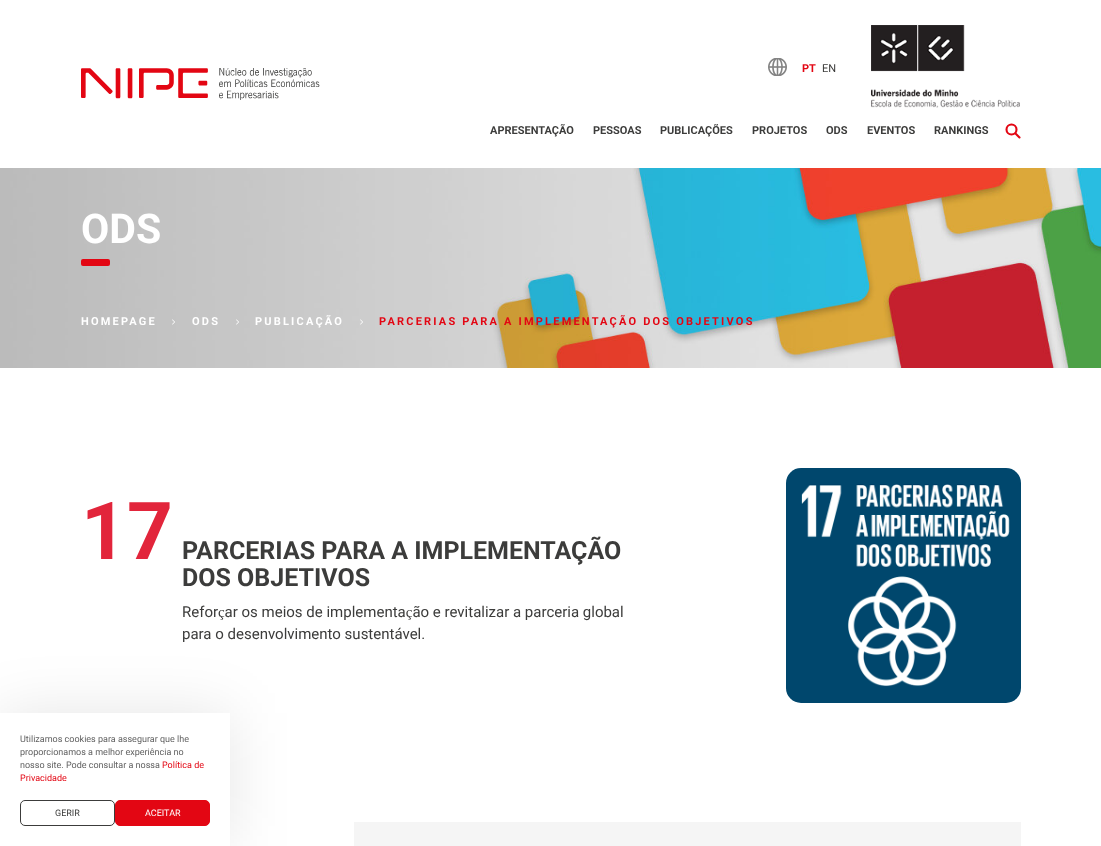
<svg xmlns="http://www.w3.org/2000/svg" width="1101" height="846">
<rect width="100%" height="100%" fill="#fff"/>
<image x="81" y="68" width="239" height="32" href="media/1.png"/>
<image x="768" y="58" width="19" height="18" href="media/2.png"/>
<text x="802" y="72" style="font-family:Roboto;font-size:11px;font-weight:bold;fill:#e30613">PT</text>
<text x="822" y="72" style="font-family:Roboto;font-size:11px;fill:#3c3c3b">EN</text>
<image x="871" y="25" width="149" height="83" href="media/3.png"/>
<text x="490" y="134" style="font-family:Roboto;font-size:11px;font-weight:bold;fill:#3c3c3b">APRESENTAÇÃO</text>
<text x="593" y="134" style="font-family:Roboto;font-size:11px;font-weight:bold;fill:#3c3c3b">PESSOAS</text>
<text x="660" y="134" style="font-family:Roboto;font-size:11px;font-weight:bold;fill:#3c3c3b">PUBLICAÇÕES</text>
<text x="752" y="134" style="font-family:Roboto;font-size:11px;font-weight:bold;fill:#3c3c3b">PROJETOS</text>
<text x="826" y="134" style="font-family:Roboto;font-size:11px;font-weight:bold;fill:#3c3c3b">ODS</text>
<text x="867" y="134" style="font-family:Roboto;font-size:11px;font-weight:bold;fill:#3c3c3b">EVENTOS</text>
<text x="934" y="134" style="font-family:Roboto;font-size:11px;font-weight:bold;fill:#3c3c3b">RANKINGS</text>
<circle cx="1011.5" cy="129.5" r="5" fill="none" stroke="#e30613" stroke-width="2.1"/>
<path d="M1015.5 133.5l4 4" fill="none" stroke="#e30613" stroke-width="2.1" stroke-linecap="round"/>
<image x="0" y="168" width="1101" height="200" href="media/4.png"/>
<text x="81" y="243" style="font-family:Roboto;font-size:41px;font-weight:bold;fill:#fff">ODS</text>
<rect x="81" y="259" width="29" height="7" rx="2" fill="#e30613"/>
<text x="81" y="325" style="font-family:Roboto;font-size:11px;font-weight:bold;letter-spacing:2.2px;fill:#fff">HOMEPAGE</text>
<image x="172" y="319" width="3" height="6" href="media/5.png"/>
<text x="192" y="325" style="font-family:Roboto;font-size:11px;font-weight:bold;letter-spacing:2.2px;fill:#fff">ODS</text>
<image x="236" y="319" width="3" height="6" href="media/6.png"/>
<text x="255" y="325" style="font-family:Roboto;font-size:11px;font-weight:bold;letter-spacing:2.2px;fill:#fff">PUBLICAÇÃO</text>
<image x="360" y="319" width="3" height="6" href="media/7.png"/>
<text x="379" y="325" style="font-family:Roboto;font-size:11px;font-weight:bold;letter-spacing:2.2px;fill:#e30613">PARCERIAS PARA A IMPLEMENTAÇÃO DOS OBJETIVOS</text>
<text x="81" y="559" style="font-family:Roboto;font-size:80px;font-weight:bold;fill:#e2253b">17</text>
<text x="182" y="559" style="font-family:Roboto;font-size:25px;font-weight:bold;fill:#3c3c3b">PARCERIAS PARA A IMPLEMENTAÇÃO</text>
<text x="182" y="586" style="font-family:Roboto;font-size:25px;font-weight:bold;fill:#3c3c3b">DOS OBJETIVOS</text>
<text x="182" y="617" style="font-family:Roboto;font-size:15px;fill:#3c3c3b">Reforçar os meios de implementação e revitalizar a parceria global</text>
<text x="182" y="639" style="font-family:Roboto;font-size:15px;fill:#3c3c3b">para o desenvolvimento sustentável.</text>
<image x="786" y="468" width="235" height="235" href="media/8.png"/>
<rect y="713" width="230" height="133" fill="#0000001a" filter="blur(30px)"/>
<rect y="713" width="230" height="133" fill="#fff"/>
<text x="20" y="742" style="font-family:Roboto;font-size:9px;fill:#626262">Utilizamos cookies para assegurar que lhe</text>
<text x="20" y="755" style="font-family:Roboto;font-size:9px;fill:#626262">proporcionamos a melhor experiência no</text>
<text x="20" y="768" style="font-family:Roboto;font-size:9px;fill:#626262">nosso site. Pode consultar a nossa</text>
<text x="162" y="768" style="font-family:Roboto;font-size:9px;fill:#e30613">Política de</text>
<text x="20" y="781" style="font-family:Roboto;font-size:9px;fill:#e30613">Privacidade</text>
<rect x="20.5" y="800.5" width="94" height="25" rx="4.5" fill="none" stroke="#3c3c3b"/>
<text x="55" y="816" style="font-family:Roboto;font-size:9px;fill:#3c3c3b">GERIR</text>
<rect x="115.5" y="800.5" width="94" height="25" rx="4.5" fill="#e30613" stroke="#e30613"/>
<text x="145" y="816" style="font-family:Roboto;font-size:9px;fill:#fff">ACEITAR</text>
<rect x="354" y="822" width="667" height="24" fill="#f5f5f5"/>
</svg>
